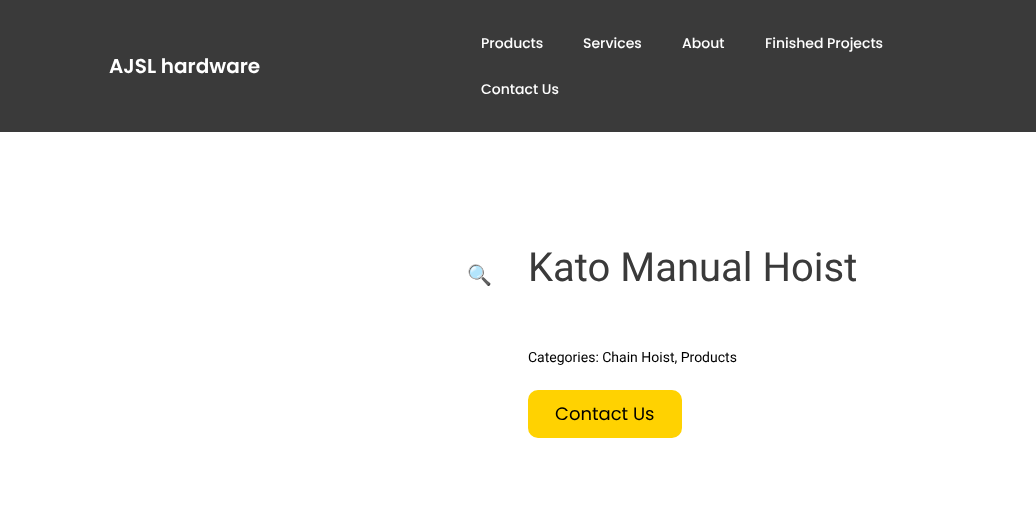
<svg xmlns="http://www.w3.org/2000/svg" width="1036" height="518">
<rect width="100%" height="100%" fill="#fff"/>
<rect width="1036" height="132" fill="#3a3a3a"/>
<text x="109" y="73" style="font-family:Poppins;font-size:20px;font-weight:600;fill:#fff">AJSL hardware</text>
<text x="481" y="48" style="font-family:Poppins;font-size:14px;font-weight:500;fill:#fff">Products</text>
<text x="583" y="48" style="font-family:Poppins;font-size:14px;font-weight:500;fill:#fff">Services</text>
<text x="682" y="48" style="font-family:Poppins;font-size:14px;font-weight:500;fill:#fff">About</text>
<text x="765" y="48" style="font-family:Poppins;font-size:14px;font-weight:500;fill:#fff">Finished Projects</text>
<text x="481" y="94" style="font-family:Poppins;font-size:14px;font-weight:500;fill:#fff">Contact Us</text>
<text x="467" y="282" style="font-family:Noto Color Emoji;font-size:20px;fill:#000">🔍</text>
<text x="528" y="281" style="font-family:Roboto;font-size:40px;fill:#3a3a3a">Kato Manual Hoist</text>
<text x="528" y="362" style="font-family:Roboto;font-size:14px;fill:#000">Categories: Chain Hoist, Products</text>
<rect x="529.5" y="391.5" width="151" height="45" rx="8.5" fill="#ffd201" stroke="#ffd201" stroke-width="3"/>
<text x="555" y="420" style="font-family:Poppins;font-size:18px;fill:#000">Contact Us</text>
</svg>
